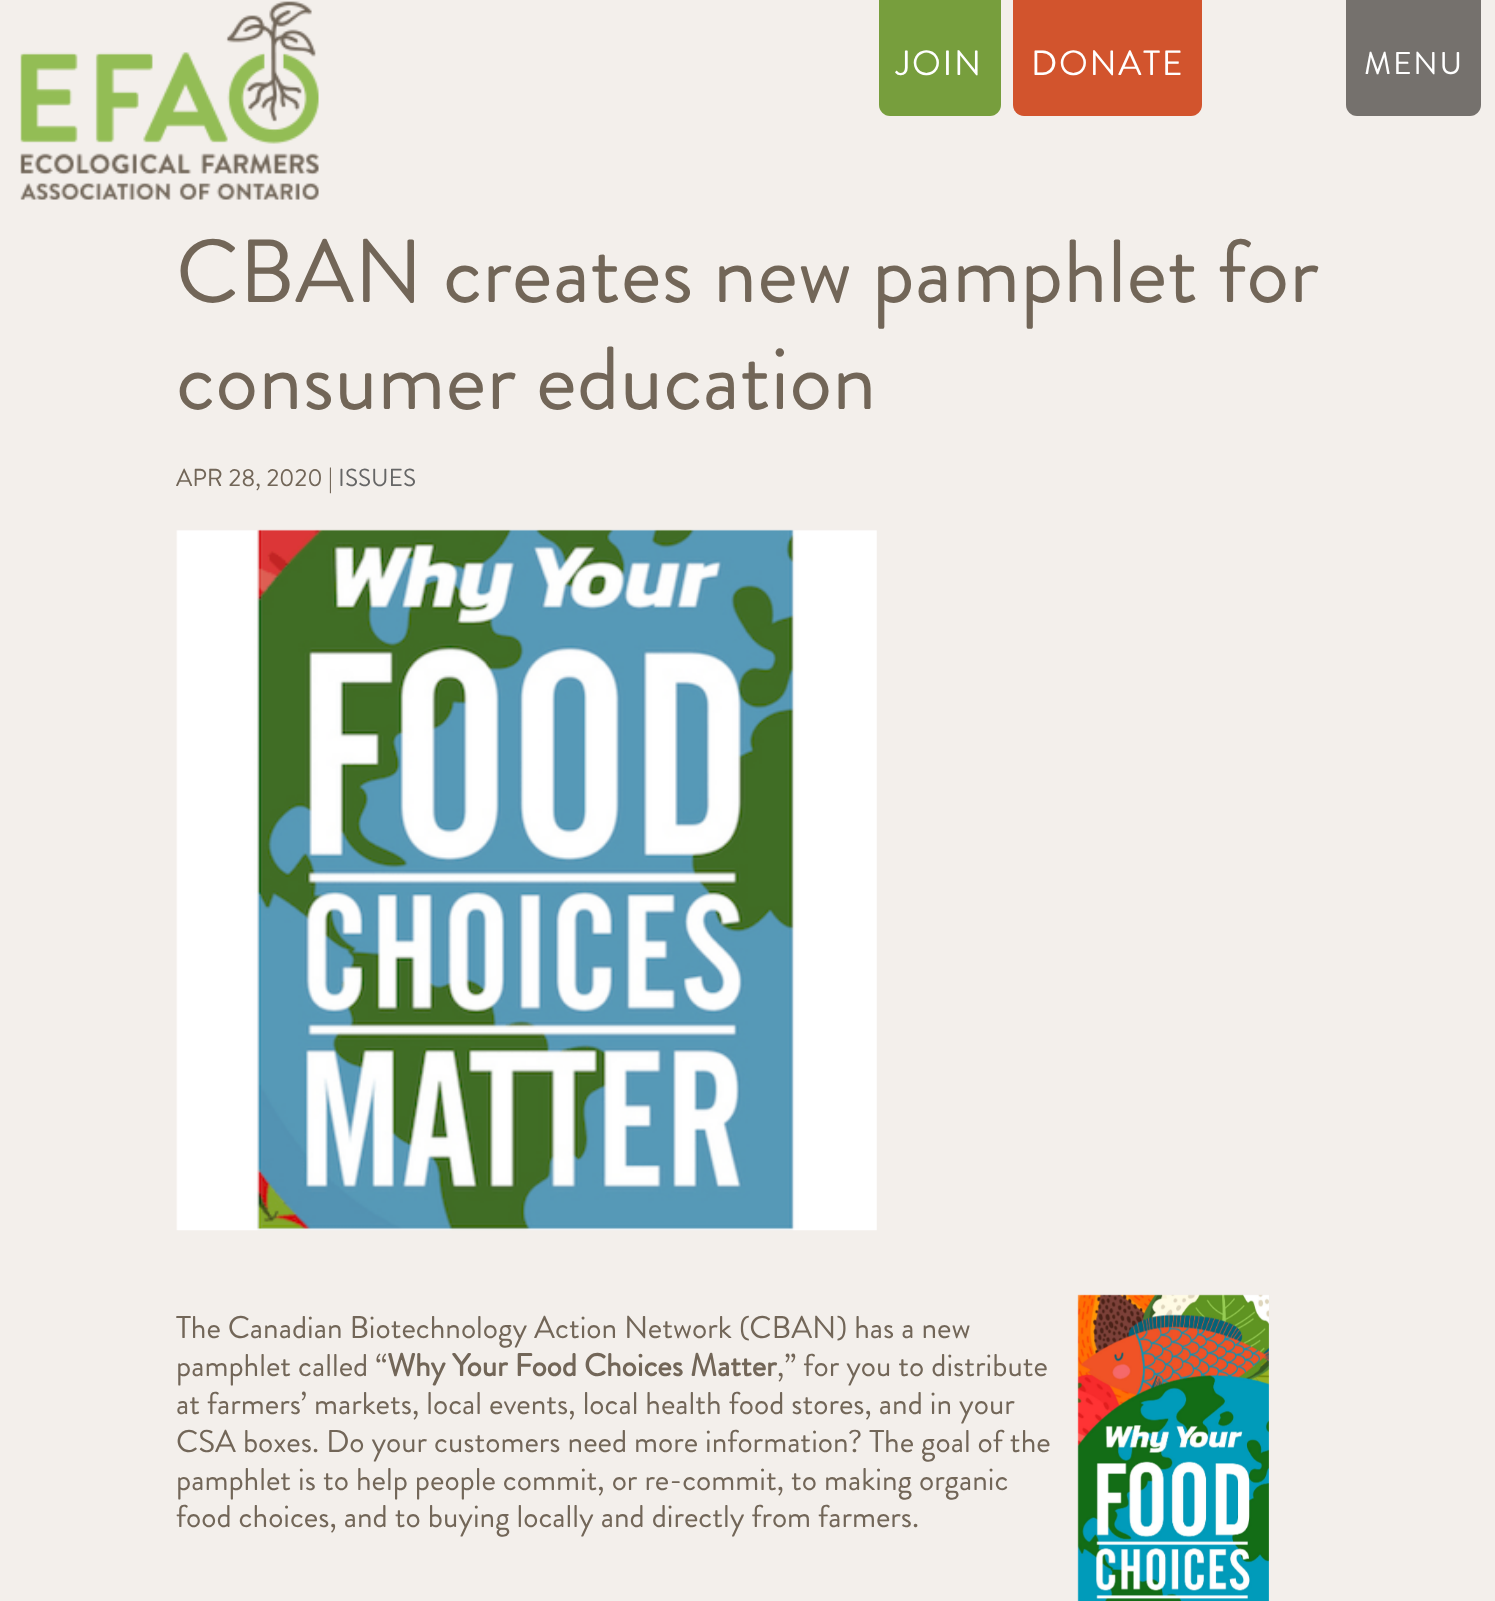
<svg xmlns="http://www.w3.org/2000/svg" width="1495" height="1601">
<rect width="100%" height="100%" fill="#f3efeb"/>
<path d="M879 0h122v105c0 6-5 11-11 11h-100c-6 0-11-5-11-11z" fill="#779e3d"/>
<text x="896" y="75" style="font-family:'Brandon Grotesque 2';font-size:35px;letter-spacing:1.75px;fill:#fff">JOIN</text>
<path d="M1013 0h189v105c0 6-5 11-11 11h-167c-6 0-11-5-11-11z" fill="#d2542d"/>
<text x="1031" y="75" style="font-family:'Brandon Grotesque 2';font-size:35px;letter-spacing:1.75px;fill:#fff">DONATE</text>
<image x="20" y="1" width="299" height="199" href="media/1.png"/>
<path d="M1346 0h135v105c0 6-5 11-11 11h-113c-6 0-11-5-11-11z" fill="#75716d"/>
<text x="1364" y="74" style="font-family:'Brandon Grotesque 2';font-size:31.5px;letter-spacing:1.75px;fill:#fff">MENU</text>
<text x="176" y="302" style="font-family:Brandon Grotesque;font-size:89.25px;fill:#726658">CBAN creates new pamphlet for</text>
<text x="176" y="409" style="font-family:Brandon Grotesque;font-size:89.25px;fill:#726658">consumer education</text>
<text x="176" y="486" style="font-family:Brandon Grotesque;font-size:24.5px;fill:#726658">APR 28, 2020 |</text>
<text x="338" y="486" style="font-family:Brandon Grotesque;font-size:24.5px;fill:#666">ISSUES</text>
<image x="176" y="529" width="701" height="702" href="media/2.png"/>
<text x="176" y="1338" style="font-family:Brandon Grotesque;font-size:31.5px;fill:#726658">The Canadian Biotechnology Action Network (CBAN) has a new</text>
<text x="176" y="1376" style="font-family:Brandon Grotesque;font-size:31.5px;fill:#726658">pamphlet called “</text>
<text x="387" y="1376" style="font-family:Brandon Grotesque;font-size:31.5px;font-weight:bold;fill:#726658">Why Your Food Choices Matter</text>
<text x="777" y="1376" style="font-family:Brandon Grotesque;font-size:31.5px;fill:#726658">,” for you to distribute</text>
<text x="176" y="1414" style="font-family:Brandon Grotesque;font-size:31.5px;fill:#726658">at farmers’ markets, local events, local health food stores, and in your</text>
<text x="176" y="1452" style="font-family:Brandon Grotesque;font-size:31.5px;fill:#726658">CSA boxes. Do your customers need more information? The goal of the</text>
<text x="176" y="1490" style="font-family:Brandon Grotesque;font-size:31.5px;fill:#726658">pamphlet is to help people commit, or re-commit, to making organic</text>
<text x="176" y="1527" style="font-family:Brandon Grotesque;font-size:31.5px;fill:#726658">food choices, and to buying locally and directly from farmers.</text>
<image x="1077" y="1294" width="192" height="307" href="media/3.png"/>
</svg>
